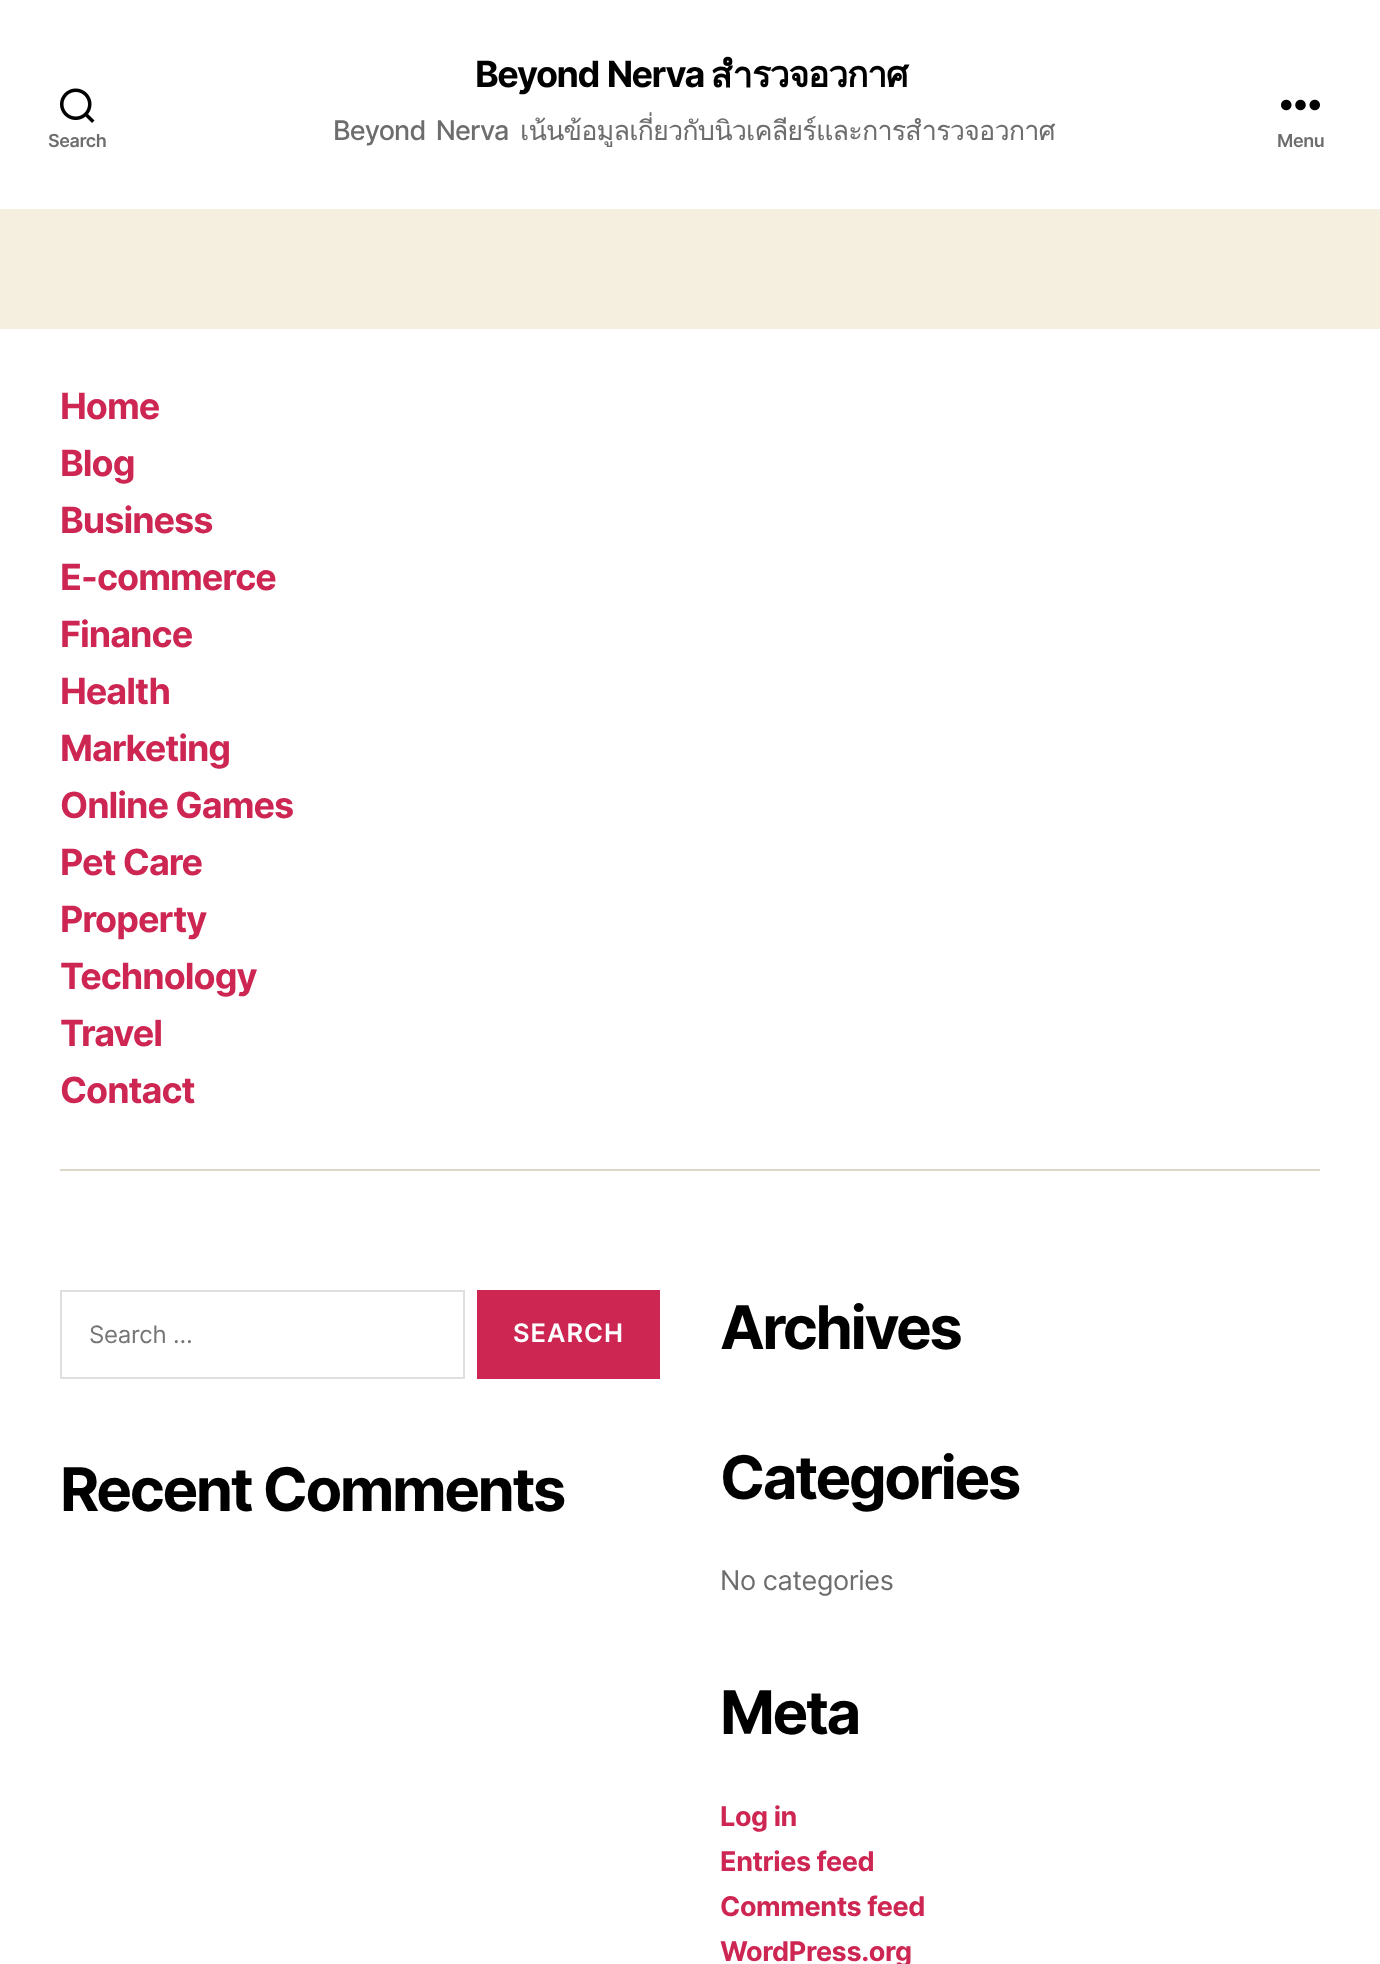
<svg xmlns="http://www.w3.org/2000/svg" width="1380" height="1964">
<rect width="100%" height="100%" fill="#f5efe0"/>
<rect width="1380" height="209" fill="#fff"/>
<image x="60" y="88" width="35" height="35" href="media/1.png"/>
<text x="48" y="147" style="font-family:Inter;font-size:18px;font-weight:600;letter-spacing:-0.4px;fill:#6d6d6d">Search</text>
<text x="475" y="87" word-spacing="1" style="font-family:Inter;font-size:36px;font-weight:bold;letter-spacing:-1.5px;fill:#000">Beyond Nerva</text>
<text x="711" y="87" style="font-family:Loma;font-size:36px;font-weight:bold;letter-spacing:-1.5px;fill:#000">สำรวจอวกาศ</text>
<text x="333" y="140" word-spacing="4" style="font-family:Inter;font-size:27px;font-weight:500;letter-spacing:-0.85px;fill:#6d6d6d">Beyond Nerva</text>
<text x="520" y="140" style="font-family:Loma;font-size:27px;letter-spacing:-0.85px;fill:#6d6d6d">เน้นข้อมูลเกี่ยวกับนิวเคลียร์และการสำรวจอวกาศ</text>
<image x="1281" y="99" width="39" height="12" href="media/2.png"/>
<text x="1277" y="147" style="font-family:Inter;font-size:18px;font-weight:600;letter-spacing:-0.4px;fill:#6d6d6d">Menu</text>
<rect y="329" width="1380" height="1635" fill="#fff"/>
<rect x="60" y="1169" width="1260" height="2" fill="#dcd7ca"/>
<text x="60" y="419" style="font-family:Inter;font-size:36px;font-weight:bold;letter-spacing:-1px;fill:#cd2653">Home</text>
<text x="60" y="476" style="font-family:Inter;font-size:36px;font-weight:bold;letter-spacing:-1px;fill:#cd2653">Blog</text>
<text x="60" y="533" style="font-family:Inter;font-size:36px;font-weight:bold;letter-spacing:-1px;fill:#cd2653">Business</text>
<text x="60" y="590" style="font-family:Inter;font-size:36px;font-weight:bold;letter-spacing:-1px;fill:#cd2653">E-commerce</text>
<text x="60" y="647" style="font-family:Inter;font-size:36px;font-weight:bold;letter-spacing:-1px;fill:#cd2653">Finance</text>
<text x="60" y="704" style="font-family:Inter;font-size:36px;font-weight:bold;letter-spacing:-1px;fill:#cd2653">Health</text>
<text x="60" y="761" style="font-family:Inter;font-size:36px;font-weight:bold;letter-spacing:-1px;fill:#cd2653">Marketing</text>
<text x="60" y="818" style="font-family:Inter;font-size:36px;font-weight:bold;letter-spacing:-1px;fill:#cd2653">Online Games</text>
<text x="60" y="875" style="font-family:Inter;font-size:36px;font-weight:bold;letter-spacing:-1px;fill:#cd2653">Pet Care</text>
<text x="60" y="932" style="font-family:Inter;font-size:36px;font-weight:bold;letter-spacing:-1px;fill:#cd2653">Property</text>
<text x="60" y="989" style="font-family:Inter;font-size:36px;font-weight:bold;letter-spacing:-1px;fill:#cd2653">Technology</text>
<text x="60" y="1046" style="font-family:Inter;font-size:36px;font-weight:bold;letter-spacing:-1px;fill:#cd2653">Travel</text>
<text x="60" y="1103" style="font-family:Inter;font-size:36px;font-weight:bold;letter-spacing:-1px;fill:#cd2653">Contact</text>
<rect x="61" y="1291" width="403" height="87" fill="none" stroke="#dedfdf" stroke-width="2"/>
<text x="89" y="1343" style="font-family:Inter;font-size:24px;letter-spacing:-0.25px;fill:#757575">Search …</text>
<rect x="477" y="1290" width="183" height="89" fill="#cd2653"/>
<text x="513" y="1342" style="font-family:Inter;font-size:25.5px;font-weight:600;letter-spacing:1px;fill:#fff">SEARCH</text>
<text x="60" y="1511" style="font-family:Inter;font-size:60px;font-weight:bold;letter-spacing:-2.5px;fill:#000">Recent Comments</text>
<text x="720" y="1349" style="font-family:Inter;font-size:60px;font-weight:bold;letter-spacing:-2.5px;fill:#000">Archives</text>
<text x="720" y="1499" style="font-family:Inter;font-size:60px;font-weight:bold;letter-spacing:-2.5px;fill:#000">Categories</text>
<text x="720" y="1590" style="font-family:Inter;font-size:27px;letter-spacing:-0.4px;fill:#6d6d6d">No categories</text>
<text x="720" y="1734" style="font-family:Inter;font-size:60px;font-weight:bold;letter-spacing:-2.5px;fill:#000">Meta</text>
<text x="720" y="1826" style="font-family:Inter;font-size:27px;font-weight:bold;letter-spacing:-0.4px;fill:#cd2653">Log in</text>
<text x="720" y="1871" style="font-family:Inter;font-size:27px;font-weight:bold;letter-spacing:-0.4px;fill:#cd2653">Entries feed</text>
<text x="720" y="1916" style="font-family:Inter;font-size:27px;font-weight:bold;letter-spacing:-0.4px;fill:#cd2653">Comments feed</text>
<text x="720" y="1961" style="font-family:Inter;font-size:27px;font-weight:bold;letter-spacing:-0.4px;fill:#cd2653">WordPress.org</text>
</svg>
